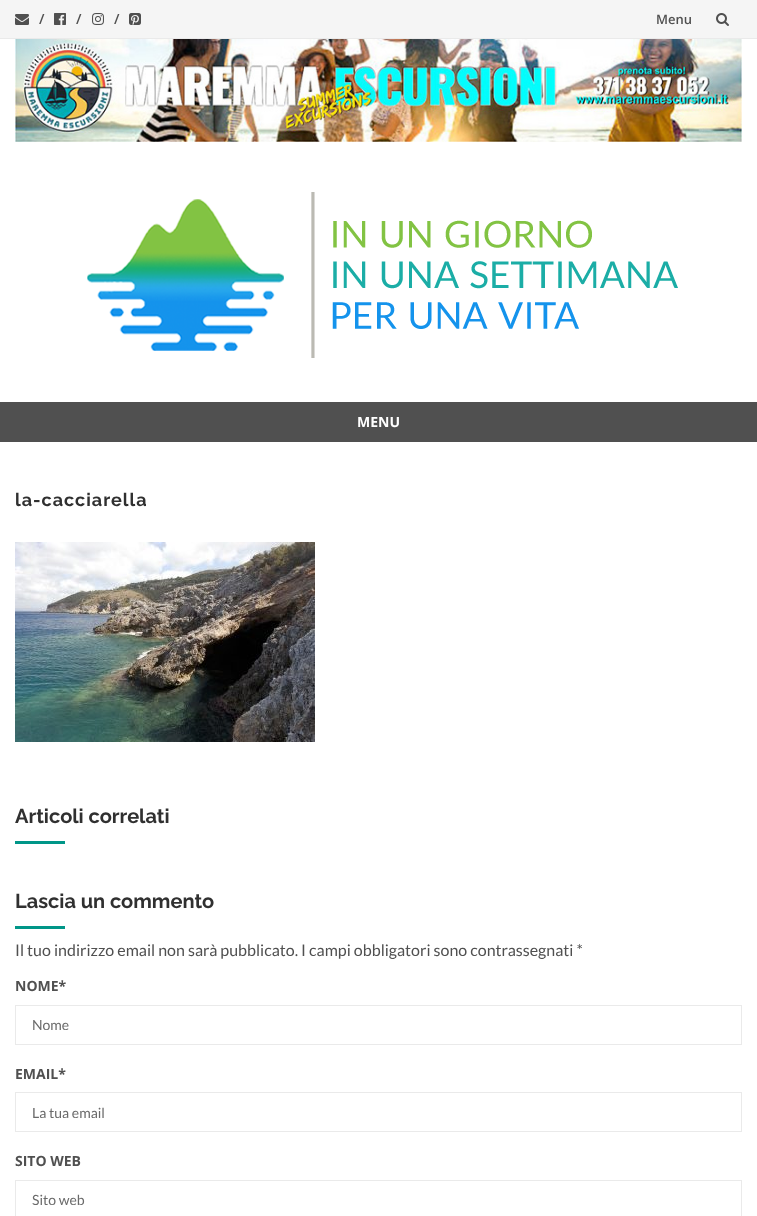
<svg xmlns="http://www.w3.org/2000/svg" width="757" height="1216">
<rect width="100%" height="100%" fill="#fff"/>
<rect width="757" height="38" fill="#f5f5f5"/>
<rect y="38" width="757" height="1" fill="#eaeaea"/>
<image x="15" y="14" width="14" height="11" href="media/1.png"/>
<text x="39" y="24" style="font-family:Open Sans;font-size:14px;font-weight:600;fill:#505050">/</text>
<image x="54" y="13" width="12" height="12" href="media/2.png"/>
<text x="76" y="24" style="font-family:Open Sans;font-size:14px;font-weight:600;fill:#505050">/</text>
<image x="92" y="13" width="12" height="12" href="media/3.png"/>
<text x="114" y="24" style="font-family:Open Sans;font-size:14px;font-weight:600;fill:#505050">/</text>
<image x="129" y="13" width="12" height="12" href="media/4.png"/>
<text x="656" y="24" style="font-family:Open Sans;font-size:13px;font-weight:600;fill:#505050">Menu</text>
<image x="716" y="13" width="13" height="13" href="media/5.png"/>
<image x="15" y="39" width="727" height="103" href="media/6.png"/>
<image x="87" y="192" width="591" height="166" href="media/7.png"/>
<rect y="402" width="757" height="40" fill="#505050"/>
<text x="357" y="427" style="font-family:Open Sans;font-size:14px;font-weight:bold;fill:#fff">MENU</text>
<text x="15" y="506" style="font-family:Raleway;font-size:18px;font-weight:bold;letter-spacing:1px;fill:#303030">la-cacciarella</text>
<image x="15" y="542" width="300" height="200" href="media/8.png"/>
<text x="15" y="823" style="font-family:Raleway;font-size:20px;font-weight:bold;fill:#303030">Articoli correlati</text>
<rect x="15" y="841" width="50" height="3" fill="#009688"/>
<text x="15" y="908" style="font-family:Raleway;font-size:20px;font-weight:bold;fill:#303030">Lascia un commento</text>
<rect x="15" y="926" width="50" height="3" fill="#009688"/>
<text x="15" y="956" style="font-family:Lato;font-size:16px;fill:#505050">Il tuo indirizzo email non sarà pubblicato. I campi obbligatori sono contrassegnati *</text>
<text x="15" y="991" style="font-family:Open Sans;font-size:14px;font-weight:bold;fill:#505050">NOME*</text>
<rect x="15.5" y="1005.5" width="726" height="39" fill="none" stroke="#eaeaea"/>
<text x="32" y="1030" style="font-family:Lato;font-size:14px;fill:#6a6a6a">Nome</text>
<text x="15" y="1079" style="font-family:Open Sans;font-size:14px;font-weight:bold;fill:#505050">EMAIL*</text>
<rect x="15.5" y="1092.5" width="726" height="39" fill="none" stroke="#eaeaea"/>
<text x="32" y="1118" style="font-family:Lato;font-size:14px;fill:#6a6a6a">La tua email</text>
<text x="15" y="1166" style="font-family:Open Sans;font-size:14px;font-weight:bold;fill:#505050">SITO WEB</text>
<rect x="15.5" y="1180.5" width="726" height="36" fill="none" stroke="#eaeaea"/>
<text x="32" y="1205" style="font-family:Lato;font-size:14px;fill:#6a6a6a">Sito web</text>
</svg>
